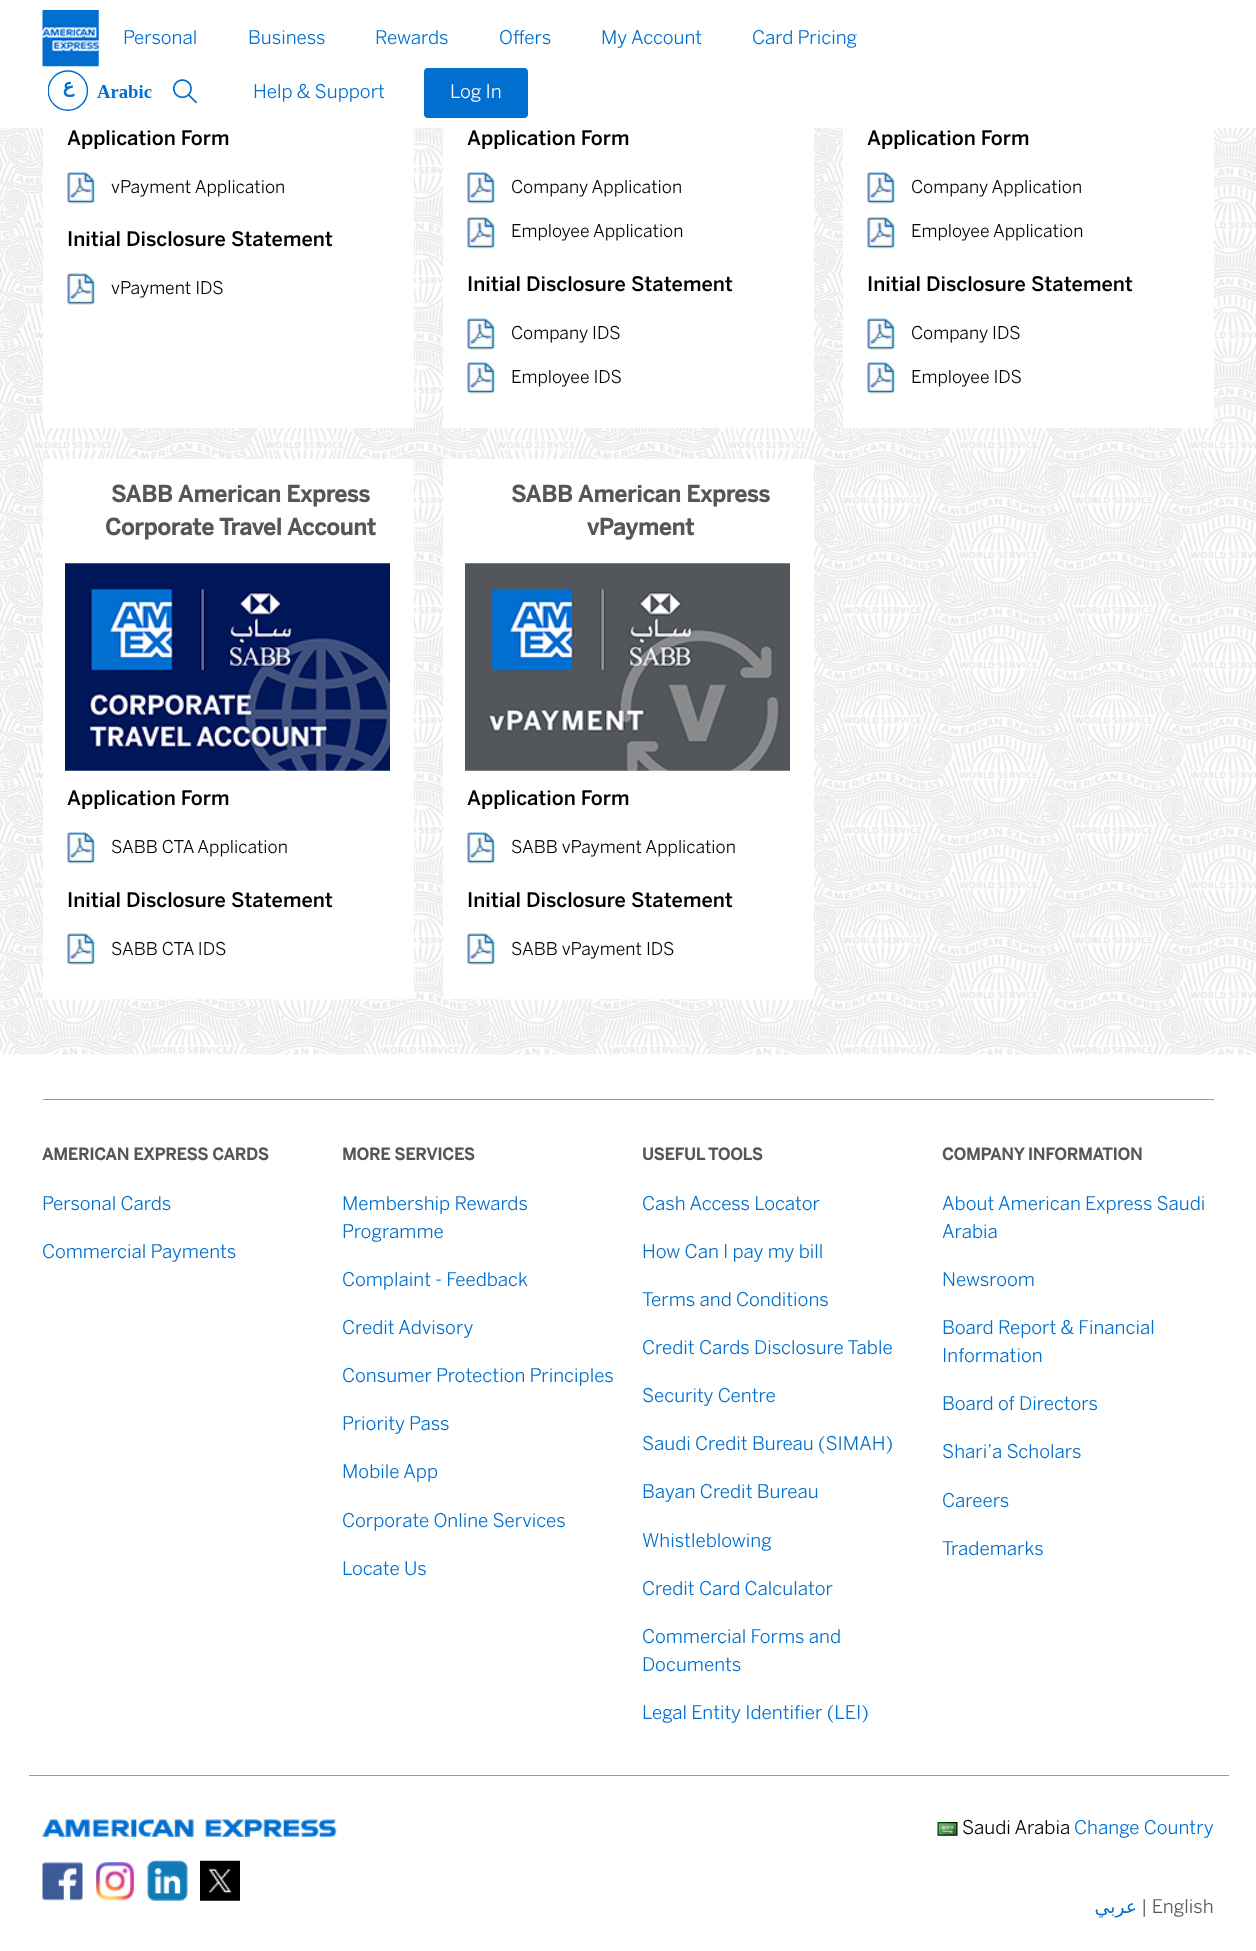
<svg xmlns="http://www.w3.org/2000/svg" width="1256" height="1951">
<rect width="100%" height="100%" fill="#fff"/>
<image x="42" y="10" width="57" height="57" href="media/1.png"/>
<text x="123" y="44" style="font-family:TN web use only;font-size:18.75px;font-weight:300;fill:#006fcf">Personal</text>
<text x="248" y="44" style="font-family:TN web use only;font-size:18.75px;font-weight:300;fill:#006fcf">Business</text>
<text x="375" y="44" style="font-family:TN web use only;font-size:18.75px;font-weight:300;fill:#006fcf">Rewards</text>
<text x="499" y="44" style="font-family:TN web use only;font-size:18.75px;font-weight:300;fill:#006fcf">Offers</text>
<text x="601" y="44" style="font-family:TN web use only;font-size:18.75px;font-weight:300;fill:#006fcf">My Account</text>
<text x="752" y="44" style="font-family:TN web use only;font-size:18.75px;font-weight:300;fill:#006fcf">Card Pricing</text>
<image x="48" y="70" width="104" height="41" href="media/2.png"/>
<image x="173" y="79" width="24" height="25" href="media/3.png"/>
<text x="253" y="98" style="font-family:TN web use only;font-size:18.75px;font-weight:300;fill:#006fcf">Help &amp; Support</text>
<rect x="424" y="68" width="104" height="50" rx="4" fill="#006fcf"/>
<text x="450" y="98" style="font-family:TN web use only;font-size:18.75px;font-weight:300;fill:#fff">Log In</text>
<image x="0" y="128" width="1256" height="927" href="media/4.png"/>
<rect x="43" y="128" width="371" height="300" fill="#fff"/>
<text x="67" y="145" style="font-family:TN web use only;font-size:20px;font-weight:500;fill:#000">Application Form</text>
<image x="67" y="172" width="28" height="32" href="media/5.png"/>
<text x="111" y="193" style="font-family:TN web use only;font-size:17.5px;font-weight:300;fill:#000">vPayment Application</text>
<text x="67" y="246" style="font-family:TN web use only;font-size:20px;font-weight:500;fill:#000">Initial Disclosure Statement</text>
<image x="67" y="273" width="28" height="32" href="media/6.png"/>
<text x="111" y="294" style="font-family:TN web use only;font-size:17.5px;font-weight:300;fill:#000">vPayment IDS</text>
<rect x="443" y="128" width="371" height="300" fill="#fff"/>
<text x="467" y="145" style="font-family:TN web use only;font-size:20px;font-weight:500;fill:#000">Application Form</text>
<image x="467" y="172" width="28" height="32" href="media/7.png"/>
<text x="511" y="193" style="font-family:TN web use only;font-size:17.5px;font-weight:300;fill:#000">Company Application</text>
<image x="467" y="217" width="28" height="32" href="media/7.png"/>
<text x="511" y="237" style="font-family:TN web use only;font-size:17.5px;font-weight:300;fill:#000">Employee Application</text>
<text x="467" y="291" style="font-family:TN web use only;font-size:20px;font-weight:500;fill:#000">Initial Disclosure Statement</text>
<image x="467" y="318" width="28" height="32" href="media/8.png"/>
<text x="511" y="339" style="font-family:TN web use only;font-size:17.5px;font-weight:300;fill:#000">Company IDS</text>
<image x="467" y="362" width="28" height="32" href="media/7.png"/>
<text x="511" y="383" style="font-family:TN web use only;font-size:17.5px;font-weight:300;fill:#000">Employee IDS</text>
<rect x="843" y="128" width="371" height="300" fill="#fff"/>
<text x="867" y="145" style="font-family:TN web use only;font-size:20px;font-weight:500;fill:#000">Application Form</text>
<image x="867" y="172" width="28" height="32" href="media/7.png"/>
<text x="911" y="193" style="font-family:TN web use only;font-size:17.5px;font-weight:300;fill:#000">Company Application</text>
<image x="867" y="217" width="28" height="32" href="media/7.png"/>
<text x="911" y="237" style="font-family:TN web use only;font-size:17.5px;font-weight:300;fill:#000">Employee Application</text>
<text x="867" y="291" style="font-family:TN web use only;font-size:20px;font-weight:500;fill:#000">Initial Disclosure Statement</text>
<image x="867" y="318" width="28" height="32" href="media/8.png"/>
<text x="911" y="339" style="font-family:TN web use only;font-size:17.5px;font-weight:300;fill:#000">Company IDS</text>
<image x="867" y="362" width="28" height="32" href="media/7.png"/>
<text x="911" y="383" style="font-family:TN web use only;font-size:17.5px;font-weight:300;fill:#000">Employee IDS</text>
<rect x="43" y="459" width="371" height="540" fill="#fff"/>
<text x="111" y="502" style="font-family:TN web use only;font-size:22.5px;font-weight:bold;fill:#53565a">SABB American Express</text>
<text x="105" y="535" style="font-family:TN web use only;font-size:22.5px;font-weight:bold;fill:#53565a">Corporate Travel Account</text>
<image x="65" y="563" width="325" height="208" href="media/9.png"/>
<text x="67" y="805" style="font-family:TN web use only;font-size:20px;font-weight:500;fill:#000">Application Form</text>
<image x="67" y="832" width="28" height="32" href="media/10.png"/>
<text x="111" y="853" style="font-family:TN web use only;font-size:17.5px;font-weight:300;fill:#000">SABB CTA Application</text>
<text x="67" y="907" style="font-family:TN web use only;font-size:20px;font-weight:500;fill:#000">Initial Disclosure Statement</text>
<image x="67" y="933" width="28" height="32" href="media/6.png"/>
<text x="111" y="955" style="font-family:TN web use only;font-size:17.5px;font-weight:300;fill:#000">SABB CTA IDS</text>
<rect x="443" y="459" width="371" height="540" fill="#fff"/>
<text x="511" y="502" style="font-family:TN web use only;font-size:22.5px;font-weight:bold;fill:#53565a">SABB American Express</text>
<text x="587" y="535" style="font-family:TN web use only;font-size:22.5px;font-weight:bold;fill:#53565a">vPayment</text>
<image x="465" y="563" width="325" height="208" href="media/11.png"/>
<text x="467" y="805" style="font-family:TN web use only;font-size:20px;font-weight:500;fill:#000">Application Form</text>
<image x="467" y="832" width="28" height="32" href="media/12.png"/>
<text x="511" y="853" style="font-family:TN web use only;font-size:17.5px;font-weight:300;fill:#000">SABB vPayment Application</text>
<text x="467" y="907" style="font-family:TN web use only;font-size:20px;font-weight:500;fill:#000">Initial Disclosure Statement</text>
<image x="467" y="933" width="28" height="32" href="media/8.png"/>
<text x="511" y="955" style="font-family:TN web use only;font-size:17.5px;font-weight:300;fill:#000">SABB vPayment IDS</text>
<rect x="43" y="1099" width="1171" height="1" fill="#9b9b9b"/>
<rect x="29" y="1775" width="1200" height="1" fill="#9b9b9b"/>
<text x="42" y="1160" style="font-family:TN web use only;font-size:16.25px;font-weight:bold;fill:#53565a">AMERICAN EXPRESS CARDS</text>
<text x="42" y="1210" style="font-family:TN web use only;font-size:18.75px;font-weight:300;fill:#006fcf">Personal Cards</text>
<text x="42" y="1258" style="font-family:TN web use only;font-size:18.75px;font-weight:300;fill:#006fcf">Commercial Payments</text>
<text x="342" y="1160" style="font-family:TN web use only;font-size:16.25px;font-weight:bold;fill:#53565a">MORE SERVICES</text>
<text x="342" y="1210" style="font-family:TN web use only;font-size:18.75px;font-weight:300;fill:#006fcf">Membership Rewards</text>
<text x="342" y="1238" style="font-family:TN web use only;font-size:18.75px;font-weight:300;fill:#006fcf">Programme</text>
<text x="342" y="1286" style="font-family:TN web use only;font-size:18.75px;font-weight:300;fill:#006fcf">Complaint - Feedback</text>
<text x="342" y="1334" style="font-family:TN web use only;font-size:18.75px;font-weight:300;fill:#006fcf">Credit Advisory</text>
<text x="342" y="1382" style="font-family:TN web use only;font-size:18.75px;font-weight:300;fill:#006fcf">Consumer Protection Principles</text>
<text x="342" y="1430" style="font-family:TN web use only;font-size:18.75px;font-weight:300;fill:#006fcf">Priority Pass</text>
<text x="342" y="1478" style="font-family:TN web use only;font-size:18.75px;font-weight:300;fill:#006fcf">Mobile App</text>
<text x="342" y="1527" style="font-family:TN web use only;font-size:18.75px;font-weight:300;fill:#006fcf">Corporate Online Services</text>
<text x="342" y="1575" style="font-family:TN web use only;font-size:18.75px;font-weight:300;fill:#006fcf">Locate Us</text>
<text x="642" y="1160" style="font-family:TN web use only;font-size:16.25px;font-weight:bold;fill:#53565a">USEFUL TOOLS</text>
<text x="642" y="1210" style="font-family:TN web use only;font-size:18.75px;font-weight:300;fill:#006fcf">Cash Access Locator</text>
<text x="642" y="1258" style="font-family:TN web use only;font-size:18.75px;font-weight:300;fill:#006fcf">How Can I pay my bill</text>
<text x="642" y="1306" style="font-family:TN web use only;font-size:18.75px;font-weight:300;fill:#006fcf">Terms and Conditions</text>
<text x="642" y="1354" style="font-family:TN web use only;font-size:18.75px;font-weight:300;fill:#006fcf">Credit Cards Disclosure Table</text>
<text x="642" y="1402" style="font-family:TN web use only;font-size:18.75px;font-weight:300;fill:#006fcf">Security Centre</text>
<text x="642" y="1450" style="font-family:TN web use only;font-size:18.75px;font-weight:300;fill:#006fcf">Saudi Credit Bureau (SIMAH)</text>
<text x="642" y="1498" style="font-family:TN web use only;font-size:18.75px;font-weight:300;fill:#006fcf">Bayan Credit Bureau</text>
<text x="642" y="1547" style="font-family:TN web use only;font-size:18.75px;font-weight:300;fill:#006fcf">Whistleblowing</text>
<text x="642" y="1595" style="font-family:TN web use only;font-size:18.75px;font-weight:300;fill:#006fcf">Credit Card Calculator</text>
<text x="642" y="1643" style="font-family:TN web use only;font-size:18.75px;font-weight:300;fill:#006fcf">Commercial Forms and</text>
<text x="642" y="1671" style="font-family:TN web use only;font-size:18.75px;font-weight:300;fill:#006fcf">Documents</text>
<text x="642" y="1719" style="font-family:TN web use only;font-size:18.75px;font-weight:300;fill:#006fcf">Legal Entity Identifier (LEI)</text>
<text x="942" y="1160" style="font-family:TN web use only;font-size:16.25px;font-weight:bold;fill:#53565a">COMPANY INFORMATION</text>
<text x="942" y="1210" style="font-family:TN web use only;font-size:18.75px;font-weight:300;fill:#006fcf">About American Express Saudi</text>
<text x="942" y="1238" style="font-family:TN web use only;font-size:18.75px;font-weight:300;fill:#006fcf">Arabia</text>
<text x="942" y="1286" style="font-family:TN web use only;font-size:18.75px;font-weight:300;fill:#006fcf">Newsroom</text>
<text x="942" y="1334" style="font-family:TN web use only;font-size:18.75px;font-weight:300;fill:#006fcf">Board Report &amp; Financial</text>
<text x="942" y="1362" style="font-family:TN web use only;font-size:18.75px;font-weight:300;fill:#006fcf">Information</text>
<text x="942" y="1410" style="font-family:TN web use only;font-size:18.75px;font-weight:300;fill:#006fcf">Board of Directors</text>
<text x="942" y="1458" style="font-family:TN web use only;font-size:18.75px;font-weight:300;fill:#006fcf">Shari’a Scholars</text>
<text x="942" y="1507" style="font-family:TN web use only;font-size:18.75px;font-weight:300;fill:#006fcf">Careers</text>
<text x="942" y="1555" style="font-family:TN web use only;font-size:18.75px;font-weight:300;fill:#006fcf">Trademarks</text>
<image x="42" y="1819" width="295" height="18" href="media/13.png"/>
<image x="42" y="1862" width="41" height="39" href="media/14.png"/>
<image x="96" y="1862" width="38" height="39" href="media/15.png"/>
<image x="147" y="1860" width="41" height="41" href="media/16.png"/>
<image x="200" y="1860" width="40" height="41" href="media/17.png"/>
<image x="937" y="1822" width="21" height="14" href="media/18.png"/>
<text x="962" y="1834" style="font-family:TN web use only;font-size:18.75px;font-weight:300;fill:#000">Saudi Arabia</text>
<text x="1074" y="1834" style="font-family:TN web use only;font-size:18.75px;font-weight:300;fill:#006fcf">Change Country</text>
<text x="1137" y="1913" style="font-family:DejaVu Sans;font-size:18.75px;direction:rtl;fill:#006fcf">عربي</text>
<text x="1141" y="1913" style="font-family:TN web use only;font-size:18.75px;font-weight:300;fill:#53565a">| English</text>
</svg>
